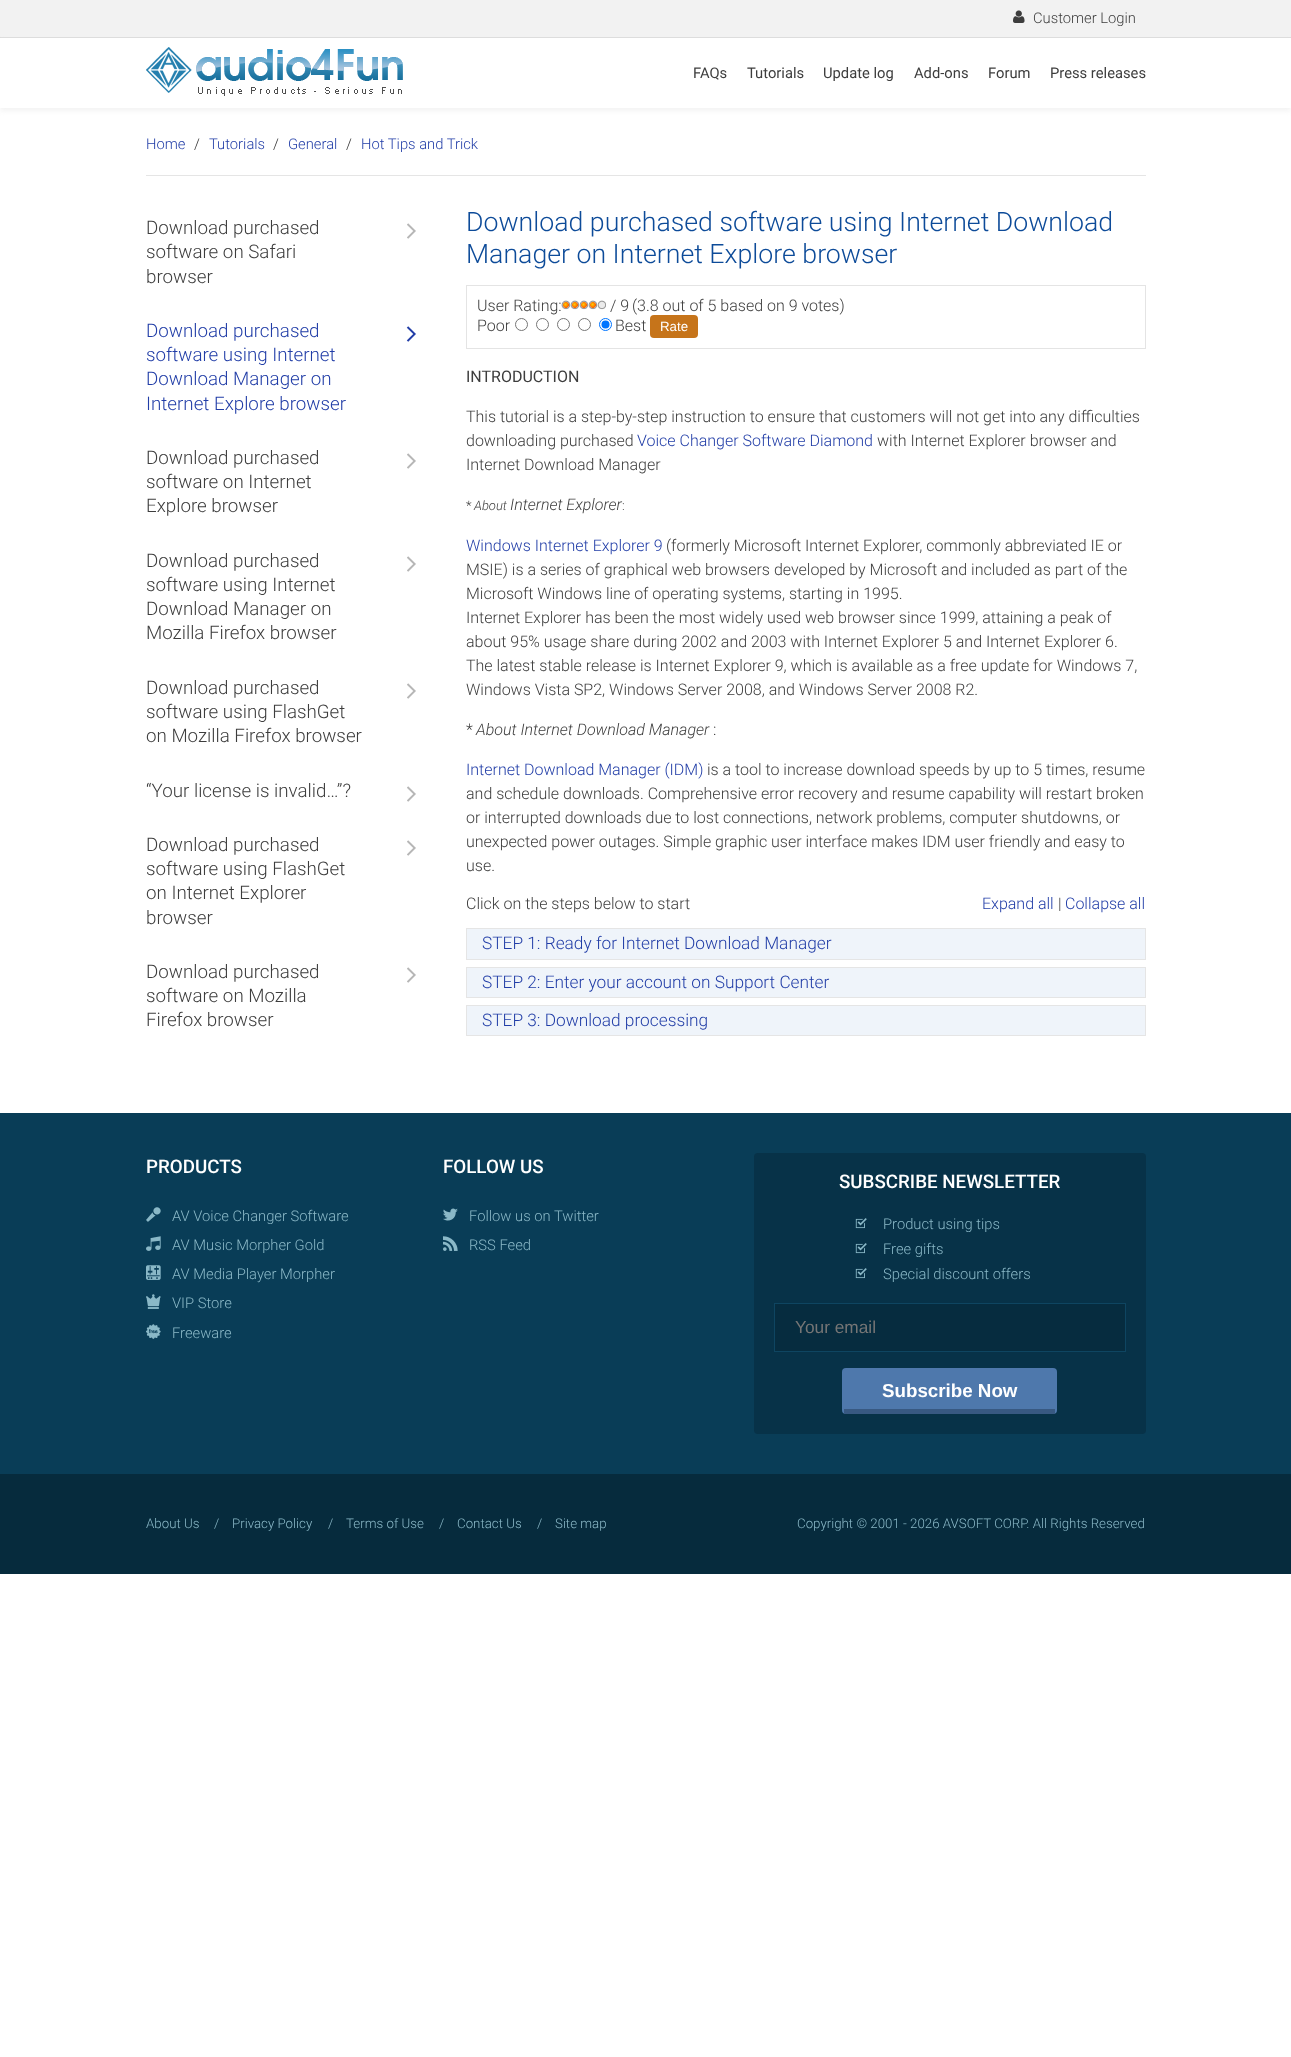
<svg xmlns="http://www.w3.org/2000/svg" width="1291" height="2057">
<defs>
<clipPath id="clip1"><path d="M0 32h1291v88h-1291zm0 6h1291v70h-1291z" clip-rule="evenodd"/></clipPath>
</defs>
<rect width="100%" height="100%" fill="#fff"/>
<rect width="1291" height="37" fill="#f2f2f2"/>
<rect y="37" width="1291" height="1" fill="#dcdcdc"/>
<image x="1013" y="10" width="12" height="13" href="media/1.png"/>
<text x="1033" y="23" style="font-family:Roboto;font-size:14.75px;font-weight:300;fill:#3d3d3d">Customer Login</text>
<g clip-path="url(#clip1)">
<rect y="41" width="1291" height="70" fill="#f3f3f3" filter="blur(2.5px)"/>
</g>
<image x="146" y="47" width="257" height="49" href="media/2.png"/>
<text x="693" y="78" style="font-family:Roboto;font-size:14.75px;fill:#3d3d3d">FAQs</text>
<text x="747" y="78" style="font-family:Roboto;font-size:14.75px;fill:#3d3d3d">Tutorials</text>
<text x="823" y="78" style="font-family:Roboto;font-size:14.75px;fill:#3d3d3d">Update log</text>
<text x="914" y="78" style="font-family:Roboto;font-size:14.75px;fill:#3d3d3d">Add-ons</text>
<text x="988" y="78" style="font-family:Roboto;font-size:14.75px;fill:#3d3d3d">Forum</text>
<text x="1050" y="78" style="font-family:Roboto;font-size:14.75px;fill:#3d3d3d">Press releases</text>
<rect x="146" y="175" width="1000" height="1" fill="#e5e5e5"/>
<text x="146" y="149" style="font-family:Roboto;font-size:14.75px;font-weight:300;fill:#213da7">Home</text>
<text x="194" y="149" style="font-family:Roboto;font-size:14.75px;font-weight:300;fill:#333">/</text>
<text x="209" y="149" style="font-family:Roboto;font-size:14.75px;font-weight:300;fill:#213da7">Tutorials</text>
<text x="273" y="149" style="font-family:Roboto;font-size:14.75px;font-weight:300;fill:#333">/</text>
<text x="288" y="149" style="font-family:Roboto;font-size:14.75px;font-weight:300;fill:#213da7">General</text>
<text x="346" y="149" style="font-family:Roboto;font-size:14.75px;font-weight:300;fill:#333">/</text>
<text x="361" y="149" style="font-family:Roboto;font-size:14.75px;font-weight:300;fill:#213da7">Hot Tips and Trick</text>
<text x="146" y="234" style="font-family:Roboto;font-size:18.75px;font-weight:300;fill:#3d3d3d">Download purchased</text>
<image x="407" y="223" width="9" height="16" href="media/3.png"/>
<text x="146" y="258" style="font-family:Roboto;font-size:18.75px;font-weight:300;fill:#3d3d3d">software on Safari</text>
<text x="146" y="283" style="font-family:Roboto;font-size:18.75px;font-weight:300;fill:#3d3d3d">browser</text>
<text x="146" y="337" style="font-family:Roboto;font-size:18.75px;font-weight:300;fill:#213da7">Download purchased</text>
<image x="406" y="326" width="10" height="16" href="media/4.png"/>
<text x="146" y="361" style="font-family:Roboto;font-size:18.75px;font-weight:300;fill:#213da7">software using Internet</text>
<text x="146" y="385" style="font-family:Roboto;font-size:18.75px;font-weight:300;fill:#213da7">Download Manager on</text>
<text x="146" y="410" style="font-family:Roboto;font-size:18.75px;font-weight:300;fill:#213da7">Internet Explore browser</text>
<text x="146" y="464" style="font-family:Roboto;font-size:18.75px;font-weight:300;fill:#3d3d3d">Download purchased</text>
<image x="407" y="453" width="9" height="16" href="media/3.png"/>
<text x="146" y="488" style="font-family:Roboto;font-size:18.75px;font-weight:300;fill:#3d3d3d">software on Internet</text>
<text x="146" y="512" style="font-family:Roboto;font-size:18.75px;font-weight:300;fill:#3d3d3d">Explore browser</text>
<text x="146" y="567" style="font-family:Roboto;font-size:18.75px;font-weight:300;fill:#3d3d3d">Download purchased</text>
<image x="407" y="556" width="9" height="16" href="media/3.png"/>
<text x="146" y="591" style="font-family:Roboto;font-size:18.75px;font-weight:300;fill:#3d3d3d">software using Internet</text>
<text x="146" y="615" style="font-family:Roboto;font-size:18.75px;font-weight:300;fill:#3d3d3d">Download Manager on</text>
<text x="146" y="639" style="font-family:Roboto;font-size:18.75px;font-weight:300;fill:#3d3d3d">Mozilla Firefox browser</text>
<text x="146" y="694" style="font-family:Roboto;font-size:18.75px;font-weight:300;fill:#3d3d3d">Download purchased</text>
<image x="407" y="683" width="9" height="16" href="media/3.png"/>
<text x="146" y="718" style="font-family:Roboto;font-size:18.75px;font-weight:300;fill:#3d3d3d">software using FlashGet</text>
<text x="146" y="742" style="font-family:Roboto;font-size:18.75px;font-weight:300;fill:#3d3d3d">on Mozilla Firefox browser</text>
<text x="146" y="797" style="font-family:Roboto;font-size:18.75px;font-weight:300;fill:#3d3d3d">“Your license is invalid…”?</text>
<image x="407" y="786" width="9" height="16" href="media/3.png"/>
<text x="146" y="851" style="font-family:Roboto;font-size:18.75px;font-weight:300;fill:#3d3d3d">Download purchased</text>
<image x="407" y="840" width="9" height="16" href="media/3.png"/>
<text x="146" y="875" style="font-family:Roboto;font-size:18.75px;font-weight:300;fill:#3d3d3d">software using FlashGet</text>
<text x="146" y="899" style="font-family:Roboto;font-size:18.75px;font-weight:300;fill:#3d3d3d">on Internet Explorer</text>
<text x="146" y="924" style="font-family:Roboto;font-size:18.75px;font-weight:300;fill:#3d3d3d">browser</text>
<text x="146" y="978" style="font-family:Roboto;font-size:18.75px;font-weight:300;fill:#3d3d3d">Download purchased</text>
<image x="407" y="967" width="9" height="16" href="media/3.png"/>
<text x="146" y="1002" style="font-family:Roboto;font-size:18.75px;font-weight:300;fill:#3d3d3d">software on Mozilla</text>
<text x="146" y="1026" style="font-family:Roboto;font-size:18.75px;font-weight:300;fill:#3d3d3d">Firefox browser</text>
<text x="466" y="231" style="font-family:Roboto;font-size:26.7px;font-weight:300;fill:#0d4b99">Download purchased software using Internet Download</text>
<text x="466" y="263" style="font-family:Roboto;font-size:26.7px;font-weight:300;fill:#0d4b99">Manager on Internet Explore browser</text>
<rect x="466.5" y="285.5" width="679" height="63" fill="none" stroke="#e4e4e4"/>
<text x="477" y="311" style="font-family:Roboto;font-size:16px;font-weight:300;fill:#3d3d3d">User Rating:</text>
<image x="561" y="300" width="9" height="10" href="media/5.png"/>
<image x="570" y="300" width="9" height="10" href="media/5.png"/>
<image x="579" y="300" width="9" height="10" href="media/5.png"/>
<image x="588" y="300" width="9" height="10" href="media/5.png"/>
<image x="597" y="300" width="9" height="10" href="media/6.png"/>
<text x="610" y="311" style="font-family:Roboto;font-size:16px;font-weight:300;fill:#3d3d3d">/ 9</text>
<text x="477" y="331" style="font-family:Roboto;font-size:16px;font-weight:300;fill:#3d3d3d">Poor</text>
<circle cx="521.5" cy="324.5" r="6" fill="none" stroke="#767676"/>
<circle cx="542.5" cy="324.5" r="6" fill="none" stroke="#767676"/>
<circle cx="563.5" cy="324.5" r="6" fill="none" stroke="#767676"/>
<circle cx="584.5" cy="324.5" r="6" fill="none" stroke="#767676"/>
<circle cx="605.5" cy="324.5" r="6" fill="none" stroke="#0075ff"/>
<circle cx="605.5" cy="324.5" r="4" fill="#0075ff"/>
<text x="615" y="331" style="font-family:Roboto;font-size:16px;font-weight:300;fill:#3d3d3d">Best</text>
<rect x="650" y="315" width="48" height="23" rx="4" fill="#c6741a"/>
<text x="660" y="331" style="font-family:Liberation Sans;font-size:13.3px;fill:#fff">Rate</text>
<text x="632" y="311" style="font-family:Roboto;font-size:16px;font-weight:300;fill:#3d3d3d">(3.8 out of 5 based on 9 votes)</text>
<text x="466" y="382" style="font-family:Roboto;font-size:16px;fill:#3d3d3d">INTRODUCTION</text>
<text x="466" y="422" style="font-family:Roboto;font-size:16px;font-weight:300;fill:#3d3d3d">This tutorial is a step-by-step instruction to ensure that customers will not get into any difficulties</text>
<text x="466" y="446" style="font-family:Roboto;font-size:16px;font-weight:300;fill:#3d3d3d">downloading purchased</text>
<text x="637" y="446" style="font-family:Roboto;font-size:16px;font-weight:300;fill:#213da7">Voice Changer Software Diamond</text>
<text x="877" y="446" style="font-family:Roboto;font-size:16px;font-weight:300;fill:#3d3d3d">with Internet Explorer browser and</text>
<text x="466" y="470" style="font-family:Roboto;font-size:16px;font-weight:300;fill:#3d3d3d">Internet Download Manager</text>
<text x="466" y="510" style="font-family:Roboto;font-size:13px;font-weight:300;fill:#3d3d3d">*</text>
<text x="474" y="510" style="font-family:Roboto;font-size:13px;font-weight:300;font-style:italic;fill:#3d3d3d">About</text>
<text x="510" y="510" style="font-family:Roboto;font-size:16px;font-weight:300;font-style:italic;fill:#3d3d3d">Internet Explorer</text>
<text x="622" y="510" style="font-family:Roboto;font-size:13px;font-weight:300;fill:#3d3d3d">:</text>
<text x="466" y="551" style="font-family:Roboto;font-size:16px;font-weight:300;fill:#213da7">Windows Internet Explorer 9</text>
<text x="666" y="551" style="font-family:Roboto;font-size:16px;font-weight:300;fill:#3d3d3d">(formerly Microsoft Internet Explorer, commonly abbreviated IE or</text>
<text x="466" y="575" style="font-family:Roboto;font-size:16px;font-weight:300;fill:#3d3d3d">MSIE) is a series of graphical web browsers developed by Microsoft and included as part of the</text>
<text x="466" y="599" style="font-family:Roboto;font-size:16px;font-weight:300;fill:#3d3d3d">Microsoft Windows line of operating systems, starting in 1995.</text>
<text x="466" y="623" style="font-family:Roboto;font-size:16px;font-weight:300;fill:#3d3d3d">Internet Explorer has been the most widely used web browser since 1999, attaining a peak of</text>
<text x="466" y="647" style="font-family:Roboto;font-size:16px;font-weight:300;fill:#3d3d3d">about 95% usage share during 2002 and 2003 with Internet Explorer 5 and Internet Explorer 6.</text>
<text x="466" y="671" style="font-family:Roboto;font-size:16px;font-weight:300;fill:#3d3d3d">The latest stable release is Internet Explorer 9, which is available as a free update for Windows 7,</text>
<text x="466" y="695" style="font-family:Roboto;font-size:16px;font-weight:300;fill:#3d3d3d">Windows Vista SP2, Windows Server 2008, and Windows Server 2008 R2.</text>
<text x="466" y="735" style="font-family:Roboto;font-size:16px;font-weight:300;fill:#3d3d3d">*</text>
<text x="476" y="735" style="font-family:Roboto;font-size:16px;font-weight:300;font-style:italic;fill:#3d3d3d">About Internet Download Manager</text>
<text x="713" y="735" style="font-family:Roboto;font-size:16px;font-weight:300;fill:#3d3d3d">:</text>
<text x="466" y="775" style="font-family:Roboto;font-size:16px;font-weight:300;fill:#213da7">Internet Download Manager (IDM)</text>
<text x="707" y="775" style="font-family:Roboto;font-size:16px;font-weight:300;fill:#3d3d3d">is a tool to increase download speeds by up to 5 times, resume</text>
<text x="466" y="799" style="font-family:Roboto;font-size:16px;font-weight:300;fill:#3d3d3d">and schedule downloads. Comprehensive error recovery and resume capability will restart broken</text>
<text x="466" y="823" style="font-family:Roboto;font-size:16px;font-weight:300;fill:#3d3d3d">or interrupted downloads due to lost connections, network problems, computer shutdowns, or</text>
<text x="466" y="847" style="font-family:Roboto;font-size:16px;font-weight:300;fill:#3d3d3d">unexpected power outages. Simple graphic user interface makes IDM user friendly and easy to</text>
<text x="466" y="871" style="font-family:Roboto;font-size:16px;font-weight:300;fill:#3d3d3d">use.</text>
<text x="466" y="909" style="font-family:Roboto;font-size:16px;font-weight:300;fill:#3d3d3d">Click on the steps below to start</text>
<text x="982" y="909" style="font-family:Roboto;font-size:16px;font-weight:300;fill:#213da7">Expand all</text>
<text x="1058" y="909" style="font-family:Roboto;font-size:16px;font-weight:300;fill:#3d3d3d">|</text>
<text x="1065" y="909" style="font-family:Roboto;font-size:16px;font-weight:300;fill:#213da7">Collapse all</text>
<rect x="466.5" y="928.5" width="679" height="31" fill="#eff4fa" stroke="#e5e5e5"/>
<text x="482" y="949" style="font-family:Roboto;font-size:17.3px;font-weight:300;fill:#213da7">STEP 1: Ready for Internet Download Manager</text>
<rect x="466.5" y="967.5" width="679" height="30" fill="#eff4fa" stroke="#e5e5e5"/>
<text x="482" y="988" style="font-family:Roboto;font-size:17.3px;font-weight:300;fill:#213da7">STEP 2: Enter your account on Support Center</text>
<rect x="466.5" y="1005.5" width="679" height="30" fill="#eff4fa" stroke="#e5e5e5"/>
<text x="482" y="1026" style="font-family:Roboto;font-size:17.3px;font-weight:300;fill:#213da7">STEP 3: Download processing</text>
<rect y="1113" width="1291" height="361" fill="#093d57"/>
<text x="146" y="1173" style="font-family:Roboto;font-size:18.75px;font-weight:500;fill:#fff">PRODUCTS</text>
<image x="146" y="1207" width="15" height="15" href="media/7.png"/>
<text x="172" y="1221" style="font-family:Roboto;font-size:14.75px;font-weight:300;fill:#8ab8c7">AV Voice Changer Software</text>
<image x="146" y="1236" width="15" height="15" href="media/8.png"/>
<text x="172" y="1250" style="font-family:Roboto;font-size:14.75px;font-weight:300;fill:#8ab8c7">AV Music Morpher Gold</text>
<image x="146" y="1265" width="15" height="15" href="media/9.png"/>
<text x="172" y="1279" style="font-family:Roboto;font-size:14.75px;font-weight:300;fill:#8ab8c7">AV Media Player Morpher</text>
<image x="146" y="1294" width="15" height="15" href="media/10.png"/>
<text x="172" y="1308" style="font-family:Roboto;font-size:14.75px;font-weight:300;fill:#8ab8c7">VIP Store</text>
<image x="146" y="1324" width="15" height="15" href="media/11.png"/>
<text x="172" y="1338" style="font-family:Roboto;font-size:14.75px;font-weight:300;fill:#8ab8c7">Freeware</text>
<text x="443" y="1173" style="font-family:Roboto;font-size:18.75px;font-weight:500;fill:#fff">FOLLOW US</text>
<image x="443" y="1208" width="15" height="13" href="media/12.png"/>
<text x="469" y="1221" style="font-family:Roboto;font-size:14.75px;font-weight:300;fill:#8ab8c7">Follow us on Twitter</text>
<image x="443" y="1236" width="15" height="15" href="media/13.png"/>
<text x="469" y="1250" style="font-family:Roboto;font-size:14.75px;font-weight:300;fill:#8ab8c7">RSS Feed</text>
<rect x="754" y="1153" width="392" height="281" rx="4" fill="#073248"/>
<text x="839" y="1188" style="font-family:Roboto;font-size:18.75px;font-weight:500;fill:#fff">SUBSCRIBE NEWSLETTER</text>
<image x="855" y="1218" width="12" height="11" href="media/14.png"/>
<text x="883" y="1229" style="font-family:Roboto;font-size:14.75px;font-weight:300;fill:#8ab8c7">Product using tips</text>
<image x="855" y="1243" width="12" height="11" href="media/14.png"/>
<text x="883" y="1254" style="font-family:Roboto;font-size:14.75px;font-weight:300;fill:#8ab8c7">Free gifts</text>
<image x="855" y="1268" width="12" height="11" href="media/14.png"/>
<text x="883" y="1279" style="font-family:Roboto;font-size:14.75px;font-weight:300;fill:#8ab8c7">Special discount offers</text>
<rect x="774.5" y="1303.5" width="351" height="48" fill="#062c3f" stroke="#0e4561"/>
<text x="795" y="1333" style="font-family:Liberation Sans;font-size:17.3px;fill:#757575">Your email</text>
<rect x="842" y="1368" width="215" height="46" rx="4" fill="#4e78ac"/>
<rect x="844" y="1409" width="211" height="5" fill="#385982"/>
<text x="882" y="1397" style="font-family:Liberation Sans;font-size:18.75px;font-weight:bold;fill:#fff">Subscribe Now</text>
<rect y="1474" width="1291" height="100" fill="#062b3d"/>
<text x="146" y="1528" style="font-family:Roboto;font-size:13.3px;font-weight:300;fill:#8ab8c7">About Us</text>
<text x="214" y="1528" style="font-family:Roboto;font-size:13.3px;font-weight:300;fill:#8ab8c7">/</text>
<text x="232" y="1528" style="font-family:Roboto;font-size:13.3px;font-weight:300;fill:#8ab8c7">Privacy Policy</text>
<text x="328" y="1528" style="font-family:Roboto;font-size:13.3px;font-weight:300;fill:#8ab8c7">/</text>
<text x="346" y="1528" style="font-family:Roboto;font-size:13.3px;font-weight:300;fill:#8ab8c7">Terms of Use</text>
<text x="439" y="1528" style="font-family:Roboto;font-size:13.3px;font-weight:300;fill:#8ab8c7">/</text>
<text x="457" y="1528" style="font-family:Roboto;font-size:13.3px;font-weight:300;fill:#8ab8c7">Contact Us</text>
<text x="537" y="1528" style="font-family:Roboto;font-size:13.3px;font-weight:300;fill:#8ab8c7">/</text>
<text x="555" y="1528" style="font-family:Roboto;font-size:13.3px;font-weight:300;fill:#8ab8c7">Site map</text>
<text x="797" y="1528" style="font-family:Roboto;font-size:13.3px;font-weight:300;fill:#8ab8c7">Copyright © 2001 - 2026 AVSOFT CORP. All Rights Reserved</text>
</svg>
